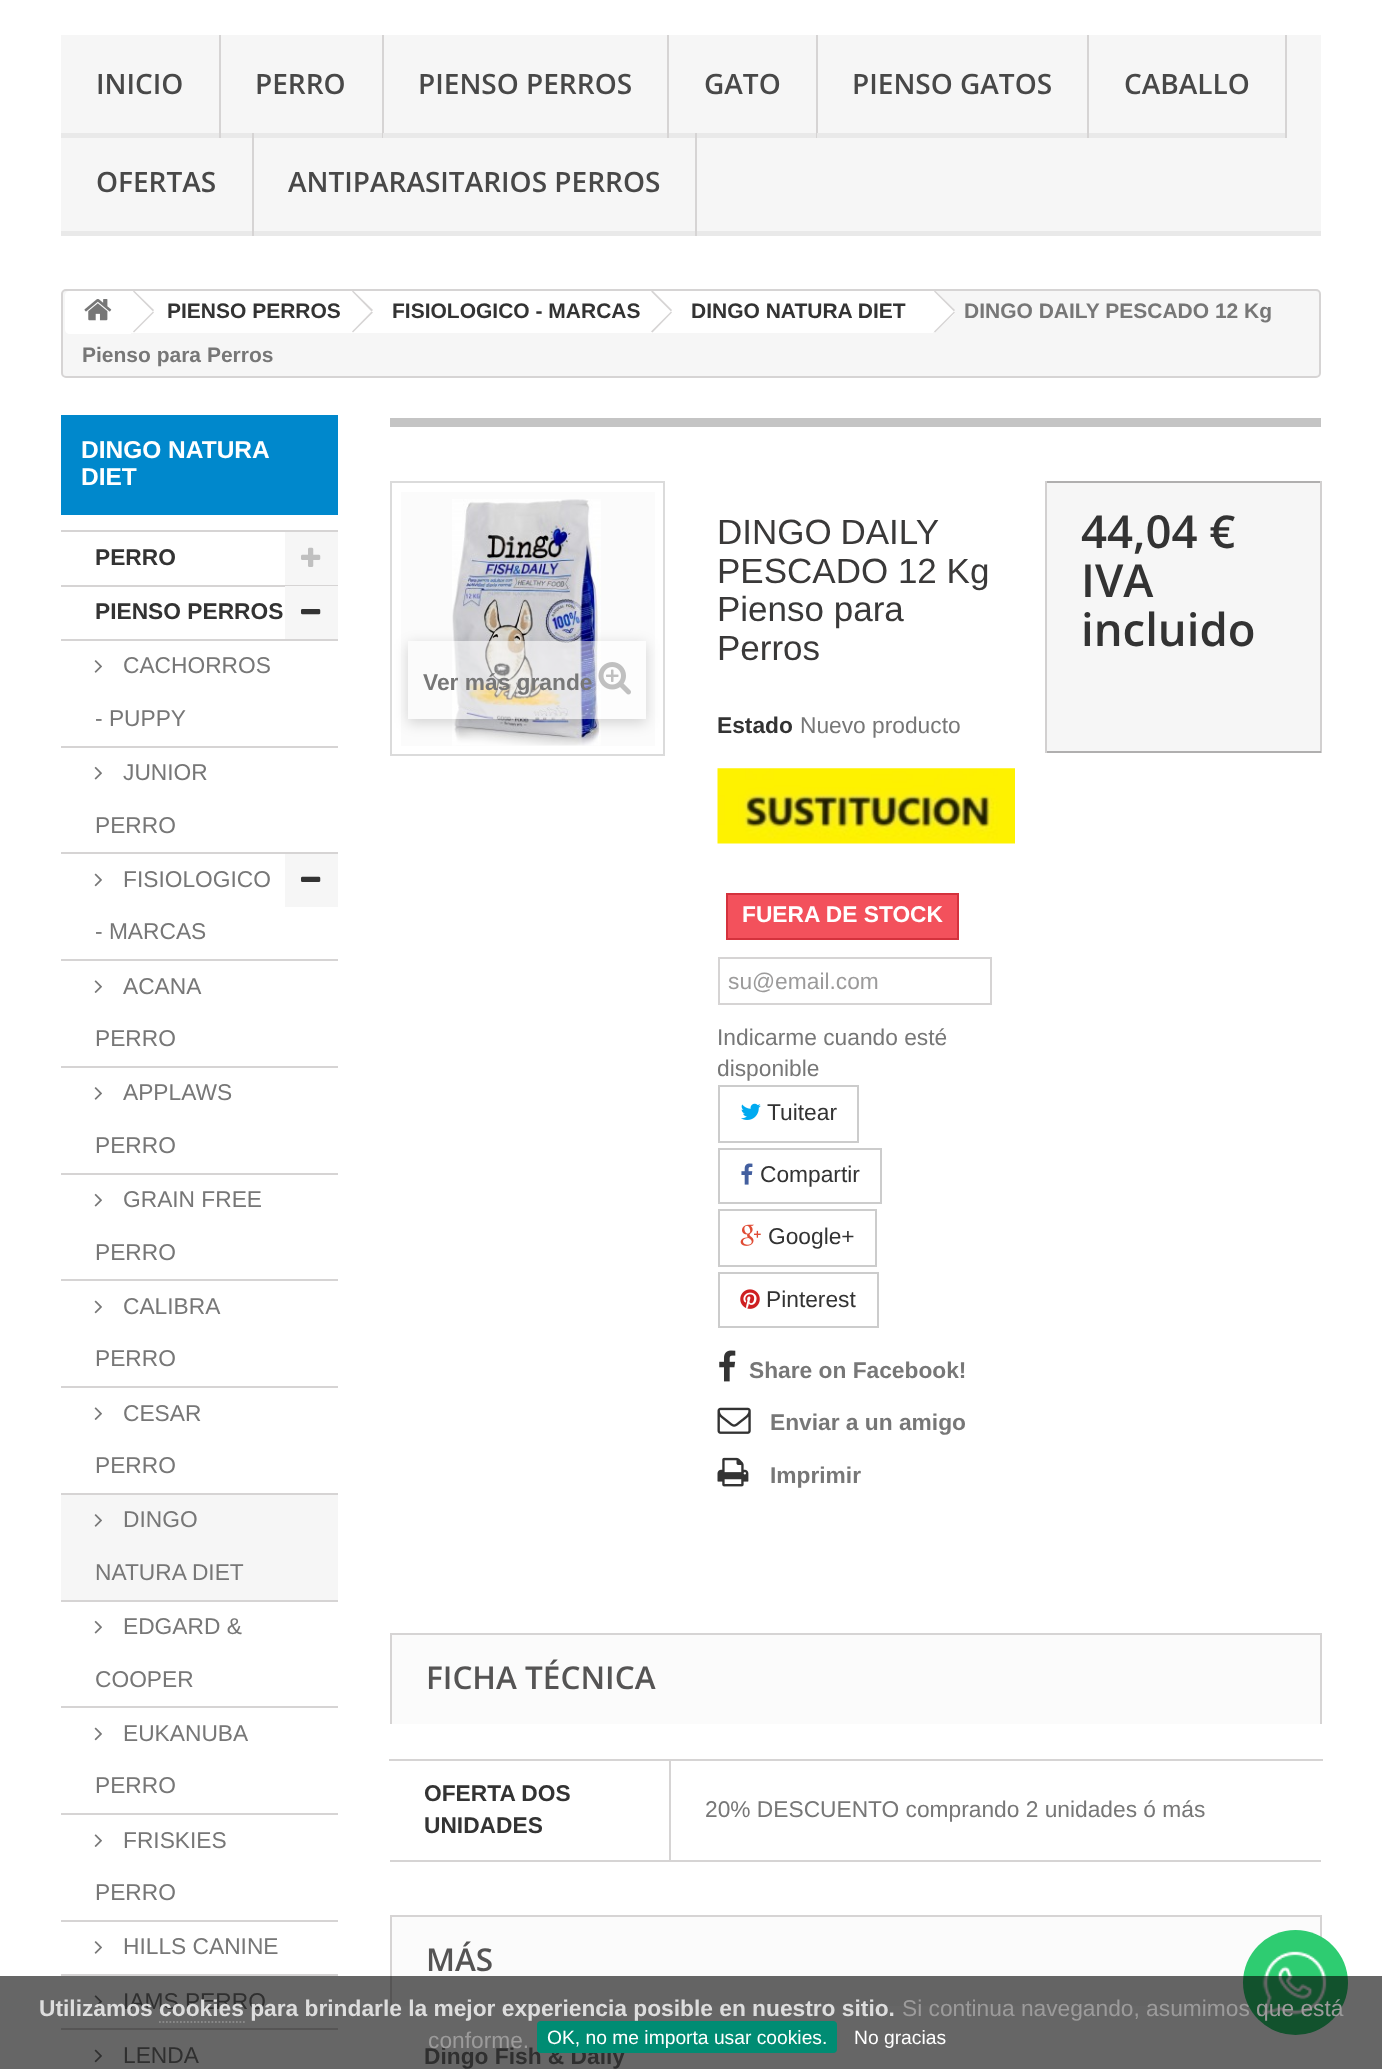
<svg xmlns="http://www.w3.org/2000/svg" width="1382" height="2069">
<defs>
<clipPath id="clip1"><path d="M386 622h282v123h-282zm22 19h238v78h-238z" clip-rule="evenodd"/></clipPath>
</defs>
<rect width="100%" height="100%" fill="#fff"/>
<rect x="61" y="35" width="1260" height="196" fill="#f6f6f6"/>
<rect x="61" y="231" width="1260" height="5" fill="#e9e9e9"/>
<rect x="219" y="35" width="2" height="103" fill="#d6d4d4"/>
<rect x="61" y="133" width="158" height="5" fill="#e9e9e9"/>
<text x="96" y="94" style="font-family:Open Sans;font-size:28px;font-weight:600;fill:#484848">INICIO</text>
<rect x="382" y="35" width="2" height="103" fill="#d6d4d4"/>
<rect x="221" y="133" width="161" height="5" fill="#e9e9e9"/>
<text x="255" y="94" style="font-family:Open Sans;font-size:28px;font-weight:600;fill:#484848">PERRO</text>
<rect x="667" y="35" width="2" height="103" fill="#d6d4d4"/>
<rect x="383" y="133" width="284" height="5" fill="#e9e9e9"/>
<text x="418" y="94" style="font-family:Open Sans;font-size:28px;font-weight:600;fill:#484848">PIENSO PERROS</text>
<rect x="816" y="35" width="2" height="103" fill="#d6d4d4"/>
<rect x="669" y="133" width="147" height="5" fill="#e9e9e9"/>
<text x="704" y="94" style="font-family:Open Sans;font-size:28px;font-weight:600;fill:#484848">GATO</text>
<rect x="1087" y="35" width="2" height="103" fill="#d6d4d4"/>
<rect x="817" y="133" width="270" height="5" fill="#e9e9e9"/>
<text x="852" y="94" style="font-family:Open Sans;font-size:28px;font-weight:600;fill:#484848">PIENSO GATOS</text>
<rect x="1285" y="35" width="2" height="103" fill="#d6d4d4"/>
<rect x="1089" y="133" width="196" height="5" fill="#e9e9e9"/>
<text x="1124" y="94" style="font-family:Open Sans;font-size:28px;font-weight:600;fill:#484848">CABALLO</text>
<rect x="252" y="133" width="2" height="103" fill="#d6d4d4"/>
<text x="96" y="192" style="font-family:Open Sans;font-size:28px;font-weight:600;fill:#484848">OFERTAS</text>
<rect x="695" y="133" width="2" height="103" fill="#d6d4d4"/>
<text x="288" y="192" style="font-family:Open Sans;font-size:28px;font-weight:600;fill:#484848">ANTIPARASITARIOS PERROS</text>
<rect x="62" y="290" width="1258" height="87" rx="4" fill="#f6f6f6" stroke="#d6d4d4" stroke-width="2"/>
<path d="M70 291h61v43h-61c-3 0-5-2-5-5v-33c0-3 2-5 5-5z" fill="#fff"/>
<image x="84" y="299" width="28" height="22" href="media/1.png"/>
<rect x="131" y="291" width="223" height="42" fill="#fff"/>
<path d="M134 290.5l20 19.5l-1 1.5l-20-20z" fill="#d6d4d4"/>
<path d="M153 311.5l1 1l-20 20l-1-1z" fill="#d6d4d4"/>
<text x="167" y="318" style="font-family:Liberation Sans;font-size:21px;font-weight:bold;fill:#333">PIENSO PERROS</text>
<path d="M372 292l-1-1h-3l-15 15c-6 6-6 5 0 11l15 15c4 1 11-8 12-10c2-1 13-9 9-13z" fill="#fff"/>
<rect x="354" y="291" width="299" height="42" fill="#fff"/>
<path d="M353 290.5l20 19.5l-1.5 1.5l-19.5-20z" fill="#d6d4d4"/>
<path d="M371.5 311.5l1.5 1l-20 20l-1-1z" fill="#d6d4d4"/>
<text x="392" y="318" style="font-family:Liberation Sans;font-size:21px;font-weight:bold;fill:#333">FISIOLOGICO - MARCAS</text>
<path d="M671 292l-1-1h-3l-19 18c-3 3 2 6 4 8l14 14c3 3 5 0 8-3l11-11c2-2 7-6 3-8z" fill="#fff"/>
<rect x="653" y="291" width="280" height="42" fill="#fff"/>
<path d="M653 291l19 19l-1 1.5l-20-20l1-.5z" fill="#d6d4d4"/>
<path d="M671 311.5l1 1l-19.5 20l-1.5-1z" fill="#d6d4d4"/>
<text x="691" y="318" style="font-family:Liberation Sans;font-size:21px;font-weight:bold;fill:#333">DINGO NATURA DIET</text>
<path d="M936 292l-1-1h-2l-16 15c-5 5-5 6 0 11l12 11c3 3 4 6 7 3l12-11c2-2 10-7 6-11z" fill="#fff"/>
<path d="M935 290.5l20 19.5l-1 1.5l-20-20z" fill="#d6d4d4"/>
<path d="M954 311.5l1 1l-20 20l-1-1z" fill="#d6d4d4"/>
<text x="964" y="318" style="font-family:Liberation Sans;font-size:21px;font-weight:bold;fill:#777">DINGO DAILY PESCADO 12 Kg</text>
<text x="82" y="362" style="font-family:Liberation Sans;font-size:21px;font-weight:bold;fill:#777">Pienso para Perros</text>
<rect x="61" y="415" width="277" height="100" fill="#08c"/>
<text x="81" y="458" style="font-family:Liberation Sans;font-size:24.5px;font-weight:bold;fill:#fff">DINGO NATURA</text>
<text x="81" y="485" style="font-family:Liberation Sans;font-size:24.5px;font-weight:bold;fill:#fff">DIET</text>
<rect x="61" y="530" width="277" height="2" fill="#d6d4d4"/>
<rect x="61" y="585" width="277" height="2" fill="#d6d4d4"/>
<text x="95" y="565" style="font-family:Liberation Sans;font-size:22.75px;font-weight:bold;fill:#333">PERRO</text>
<rect x="285" y="532" width="53" height="53" fill="#f6f6f6"/>
<image x="301" y="547" width="20" height="20" href="media/2.png"/>
<rect x="61" y="639" width="277" height="2" fill="#d6d4d4"/>
<text x="95" y="619" style="font-family:Liberation Sans;font-size:22.75px;font-weight:bold;fill:#333">PIENSO PERROS</text>
<rect x="285" y="586" width="53" height="53" fill="#f6f6f6"/>
<image x="301" y="609" width="20" height="6" href="media/3.png"/>
<rect x="61" y="746" width="277" height="2" fill="#d6d4d4"/>
<image x="94" y="660" width="8" height="13" href="media/4.png"/>
<text x="123" y="673" style="font-family:Liberation Sans;font-size:22.75px;fill:#777">CACHORROS</text>
<text x="95" y="726" style="font-family:Liberation Sans;font-size:22.75px;fill:#777">- PUPPY</text>
<rect x="61" y="852" width="277" height="2" fill="#d6d4d4"/>
<image x="94" y="766" width="8" height="14" href="media/5.png"/>
<text x="123" y="780" style="font-family:Liberation Sans;font-size:22.75px;fill:#777">JUNIOR</text>
<text x="95" y="833" style="font-family:Liberation Sans;font-size:22.75px;fill:#777">PERRO</text>
<rect x="61" y="959" width="277" height="2" fill="#d6d4d4"/>
<image x="94" y="873" width="8" height="14" href="media/6.png"/>
<text x="123" y="887" style="font-family:Liberation Sans;font-size:22.75px;fill:#777">FISIOLOGICO</text>
<text x="95" y="939" style="font-family:Liberation Sans;font-size:22.75px;fill:#777">- MARCAS</text>
<rect x="285" y="854" width="53" height="53" fill="#f6f6f6"/>
<image x="301" y="876" width="20" height="6" href="media/7.png"/>
<rect x="61" y="1066" width="277" height="2" fill="#d6d4d4"/>
<image x="94" y="980" width="8" height="13" href="media/8.png"/>
<text x="123" y="994" style="font-family:Liberation Sans;font-size:22.75px;fill:#777">ACANA</text>
<text x="95" y="1046" style="font-family:Liberation Sans;font-size:22.75px;fill:#777">PERRO</text>
<rect x="61" y="1173" width="277" height="2" fill="#d6d4d4"/>
<image x="94" y="1087" width="8" height="13" href="media/4.png"/>
<text x="123" y="1100" style="font-family:Liberation Sans;font-size:22.75px;fill:#777">APPLAWS</text>
<text x="95" y="1153" style="font-family:Liberation Sans;font-size:22.75px;fill:#777">PERRO</text>
<rect x="61" y="1279" width="277" height="2" fill="#d6d4d4"/>
<image x="94" y="1193" width="8" height="14" href="media/5.png"/>
<text x="123" y="1207" style="font-family:Liberation Sans;font-size:22.75px;fill:#777">GRAIN FREE</text>
<text x="95" y="1260" style="font-family:Liberation Sans;font-size:22.75px;fill:#777">PERRO</text>
<rect x="61" y="1386" width="277" height="2" fill="#d6d4d4"/>
<image x="94" y="1300" width="8" height="14" href="media/6.png"/>
<text x="123" y="1314" style="font-family:Liberation Sans;font-size:22.75px;fill:#777">CALIBRA</text>
<text x="95" y="1366" style="font-family:Liberation Sans;font-size:22.75px;fill:#777">PERRO</text>
<rect x="61" y="1493" width="277" height="2" fill="#d6d4d4"/>
<image x="94" y="1407" width="8" height="13" href="media/8.png"/>
<text x="123" y="1421" style="font-family:Liberation Sans;font-size:22.75px;fill:#777">CESAR</text>
<text x="95" y="1473" style="font-family:Liberation Sans;font-size:22.75px;fill:#777">PERRO</text>
<rect x="61" y="1495" width="277" height="105" fill="#f6f6f6"/>
<rect x="61" y="1600" width="277" height="2" fill="#d6d4d4"/>
<image x="94" y="1514" width="8" height="13" href="media/9.png"/>
<text x="123" y="1527" style="font-family:Liberation Sans;font-size:22.75px;fill:#777">DINGO</text>
<text x="95" y="1580" style="font-family:Liberation Sans;font-size:22.75px;fill:#777">NATURA DIET</text>
<rect x="61" y="1706" width="277" height="2" fill="#d6d4d4"/>
<image x="94" y="1620" width="8" height="14" href="media/5.png"/>
<text x="123" y="1634" style="font-family:Liberation Sans;font-size:22.75px;fill:#777">EDGARD &amp;</text>
<text x="95" y="1687" style="font-family:Liberation Sans;font-size:22.75px;fill:#777">COOPER</text>
<rect x="61" y="1813" width="277" height="2" fill="#d6d4d4"/>
<image x="94" y="1727" width="8" height="14" href="media/6.png"/>
<text x="123" y="1741" style="font-family:Liberation Sans;font-size:22.75px;fill:#777">EUKANUBA</text>
<text x="95" y="1793" style="font-family:Liberation Sans;font-size:22.75px;fill:#777">PERRO</text>
<rect x="61" y="1920" width="277" height="2" fill="#d6d4d4"/>
<image x="94" y="1834" width="8" height="13" href="media/8.png"/>
<text x="123" y="1848" style="font-family:Liberation Sans;font-size:22.75px;fill:#777">FRISKIES</text>
<text x="95" y="1900" style="font-family:Liberation Sans;font-size:22.75px;fill:#777">PERRO</text>
<rect x="61" y="1974" width="277" height="2" fill="#d6d4d4"/>
<image x="94" y="1941" width="8" height="13" href="media/4.png"/>
<text x="123" y="1954" style="font-family:Liberation Sans;font-size:22.75px;fill:#777">HILLS CANINE</text>
<rect x="61" y="2028" width="277" height="2" fill="#d6d4d4"/>
<image x="94" y="1995" width="8" height="13" href="media/8.png"/>
<text x="123" y="2009" style="font-family:Liberation Sans;font-size:22.75px;fill:#777">IAMS PERRO</text>
<image x="94" y="2049" width="8" height="14" href="media/6.png"/>
<text x="123" y="2063" style="font-family:Liberation Sans;font-size:22.75px;fill:#777">LENDA</text>
<rect x="390" y="418" width="931" height="9" fill="#c4c4c4"/>
<rect x="391" y="482" width="273" height="273" fill="none" stroke="#dbdbdb" stroke-width="2"/>
<rect x="401" y="492" width="254" height="254" fill="#fbfbfb"/>
<image x="452" y="499" width="149" height="247" href="media/10.png"/>
<g clip-path="url(#clip1)">
<rect x="408" y="644" width="238" height="79" fill="#00000029" filter="blur(7px)"/>
</g>
<rect x="453" y="641" width="193" height="78" fill="#ffffff80"/>
<text x="423" y="690" style="font-family:Liberation Sans;font-size:22.75px;font-weight:bold;fill:#777">Ver más grande</text>
<image x="598" y="662" width="33" height="33" href="media/11.png"/>
<text x="717" y="544" word-spacing="-1" style="font-family:Liberation Sans;font-size:35px;fill:#3a3939">DINGO DAILY</text>
<text x="717" y="583" style="font-family:Liberation Sans;font-size:35px;fill:#3a3939">PESCADO 12 Kg</text>
<text x="717" y="621" style="font-family:Liberation Sans;font-size:35px;fill:#3a3939">Pienso para</text>
<text x="717" y="660" style="font-family:Liberation Sans;font-size:35px;fill:#3a3939">Perros</text>
<text x="717" y="733" style="font-family:Liberation Sans;font-size:22.75px;font-weight:bold;fill:#333">Estado</text>
<text x="800" y="733" style="font-family:Liberation Sans;font-size:22.75px;fill:#777">Nuevo producto</text>
<image x="717" y="768" width="298" height="76" href="media/12.png"/>
<rect x="727" y="894" width="231" height="45" fill="#f3515c" stroke="#d4323d" stroke-width="2"/>
<text x="742" y="922" style="font-family:Liberation Sans;font-size:22.75px;font-weight:bold;fill:#fff">FUERA DE STOCK</text>
<rect x="719" y="958" width="272" height="46" fill="none" stroke="#d6d4d4" stroke-width="2"/>
<text x="728" y="989" style="font-family:Liberation Sans;font-size:22.75px;fill:#9c9b9b">su@email.com</text>
<text x="717" y="1045" style="font-family:Liberation Sans;font-size:22.75px;fill:#777">Indicarme cuando esté</text>
<text x="717" y="1076" style="font-family:Liberation Sans;font-size:22.75px;fill:#777">disponible</text>
<rect x="719" y="1086" width="139" height="56" fill="none" stroke="#ccc" stroke-width="2"/>
<image x="741" y="1103" width="20" height="17" href="media/13.png"/>
<text x="767" y="1120" style="font-family:Liberation Sans;font-size:22.75px;fill:#333">Tuitear</text>
<rect x="719" y="1149" width="162" height="54" fill="none" stroke="#ccc" stroke-width="2"/>
<image x="741" y="1163" width="12" height="22" href="media/14.png"/>
<text x="760" y="1182" style="font-family:Liberation Sans;font-size:22.75px;fill:#333">Compartir</text>
<rect x="719" y="1210" width="157" height="56" fill="none" stroke="#ccc" stroke-width="2"/>
<image x="740" y="1224" width="21" height="22" href="media/15.png"/>
<text x="768" y="1244" style="font-family:Liberation Sans;font-size:22.75px;fill:#333">Google+</text>
<rect x="719" y="1273" width="159" height="54" fill="none" stroke="#ccc" stroke-width="2"/>
<image x="740" y="1289" width="20" height="20" href="media/16.png"/>
<text x="766" y="1307" style="font-family:Liberation Sans;font-size:22.75px;fill:#333">Pinterest</text>
<image x="719" y="1350" width="17" height="32" href="media/17.png"/>
<text x="749" y="1378" style="font-family:Liberation Sans;font-size:22.75px;font-weight:bold;fill:#777">Share on Facebook!</text>
<image x="717" y="1407" width="34" height="27" href="media/18.png"/>
<text x="770" y="1430" style="font-family:Liberation Sans;font-size:22.75px;font-weight:bold;fill:#777">Enviar a un amigo</text>
<image x="717" y="1457" width="32" height="30" href="media/19.png"/>
<text x="770" y="1483" style="font-family:Liberation Sans;font-size:22.75px;font-weight:bold;fill:#777">Imprimir</text>
<rect x="1047" y="483" width="273" height="268" fill="#f6f6f6"/>
<rect x="1045" y="481" width="276" height="2" fill="#b0afaf"/>
<rect x="1320" y="481" width="2" height="272" fill="#d2d0d0"/>
<rect x="1045" y="751" width="276" height="2" fill="#b0afaf"/>
<rect x="1045" y="481" width="2" height="272" fill="#d2d0d0"/>
<text x="1081" y="548" style="font-family:Open Sans;font-size:45.5px;font-weight:600;fill:#333">44,04 €</text>
<text x="1081" y="597" style="font-family:Open Sans;font-size:45.5px;font-weight:600;fill:#333">IVA</text>
<text x="1081" y="646" style="font-family:Open Sans;font-size:45.5px;font-weight:600;fill:#333">incluido</text>
<rect x="392" y="1635" width="928" height="89" fill="#fbfbfb"/>
<rect x="390" y="1633" width="931" height="2" fill="#d6d4d4"/>
<rect x="1320" y="1633" width="2" height="91" fill="#d6d4d4"/>
<rect x="390" y="1633" width="2" height="91" fill="#d6d4d4"/>
<text x="426" y="1689" style="font-family:Open Sans;font-size:31.5px;font-weight:600;fill:#555454">FICHA TÉCNICA</text>
<rect x="390" y="1860" width="931" height="2" fill="#d6d4d4"/>
<rect x="389" y="1759" width="934" height="2" fill="#d6d4d4"/>
<rect x="669" y="1759" width="2" height="103" fill="#d6d4d4"/>
<text x="424" y="1801" style="font-family:Liberation Sans;font-size:22.75px;font-weight:bold;fill:#333">OFERTA DOS</text>
<text x="424" y="1833" style="font-family:Liberation Sans;font-size:22.75px;font-weight:bold;fill:#333">UNIDADES</text>
<text x="705" y="1817" style="font-family:Liberation Sans;font-size:22.75px;fill:#777">20% DESCUENTO comprando 2 unidades ó más</text>
<rect x="392" y="1917" width="928" height="89" fill="#fbfbfb"/>
<rect x="390" y="1915" width="931" height="2" fill="#d6d4d4"/>
<rect x="1320" y="1915" width="2" height="23" fill="#d6d4d4"/>
<rect x="390" y="1915" width="2" height="91" fill="#d6d4d4"/>
<text x="426" y="1971" style="font-family:Open Sans;font-size:31.5px;font-weight:600;fill:#555454">MÁS</text>
<text x="424" y="2064" style="font-family:Liberation Sans;font-size:22.75px;font-weight:bold;fill:#777">Dingo Fish &amp; Daily</text>
<circle cx="1295.5" cy="1982.5" r="52.5" fill="#2ecc71"/>
<image x="1262" y="1951" width="65" height="65" href="media/20.png"/>
<rect y="1976" width="1382" height="93" fill="#00000099"/>
<text x="39" y="2016" style="font-family:Liberation Sans;font-size:22.75px;font-weight:bold;fill:#ddd">Utilizamos cookies para brindarle la mejor experiencia posible en nuestro sitio.</text>
<path d="M159 2022h86" fill="none" stroke="#888" stroke-width="1.8" stroke-dasharray="1.75 1.75"/>
<text x="902" y="2016" style="font-family:Liberation Sans;font-size:22.75px;fill:#9c9b9b">Si continua navegando, asumimos que está</text>
<text x="428" y="2048" style="font-family:Liberation Sans;font-size:22.75px;fill:#9c9b9b">conforme.</text>
<rect x="537" y="2021" width="300" height="32" rx="4" fill="#008c73"/>
<text x="547" y="2044" style="font-family:Liberation Sans;font-size:19.25px;fill:#fff">OK, no me importa usar cookies.</text>
<text x="854" y="2044" style="font-family:Liberation Sans;font-size:19.25px;fill:#fff">No gracias</text>
</svg>
